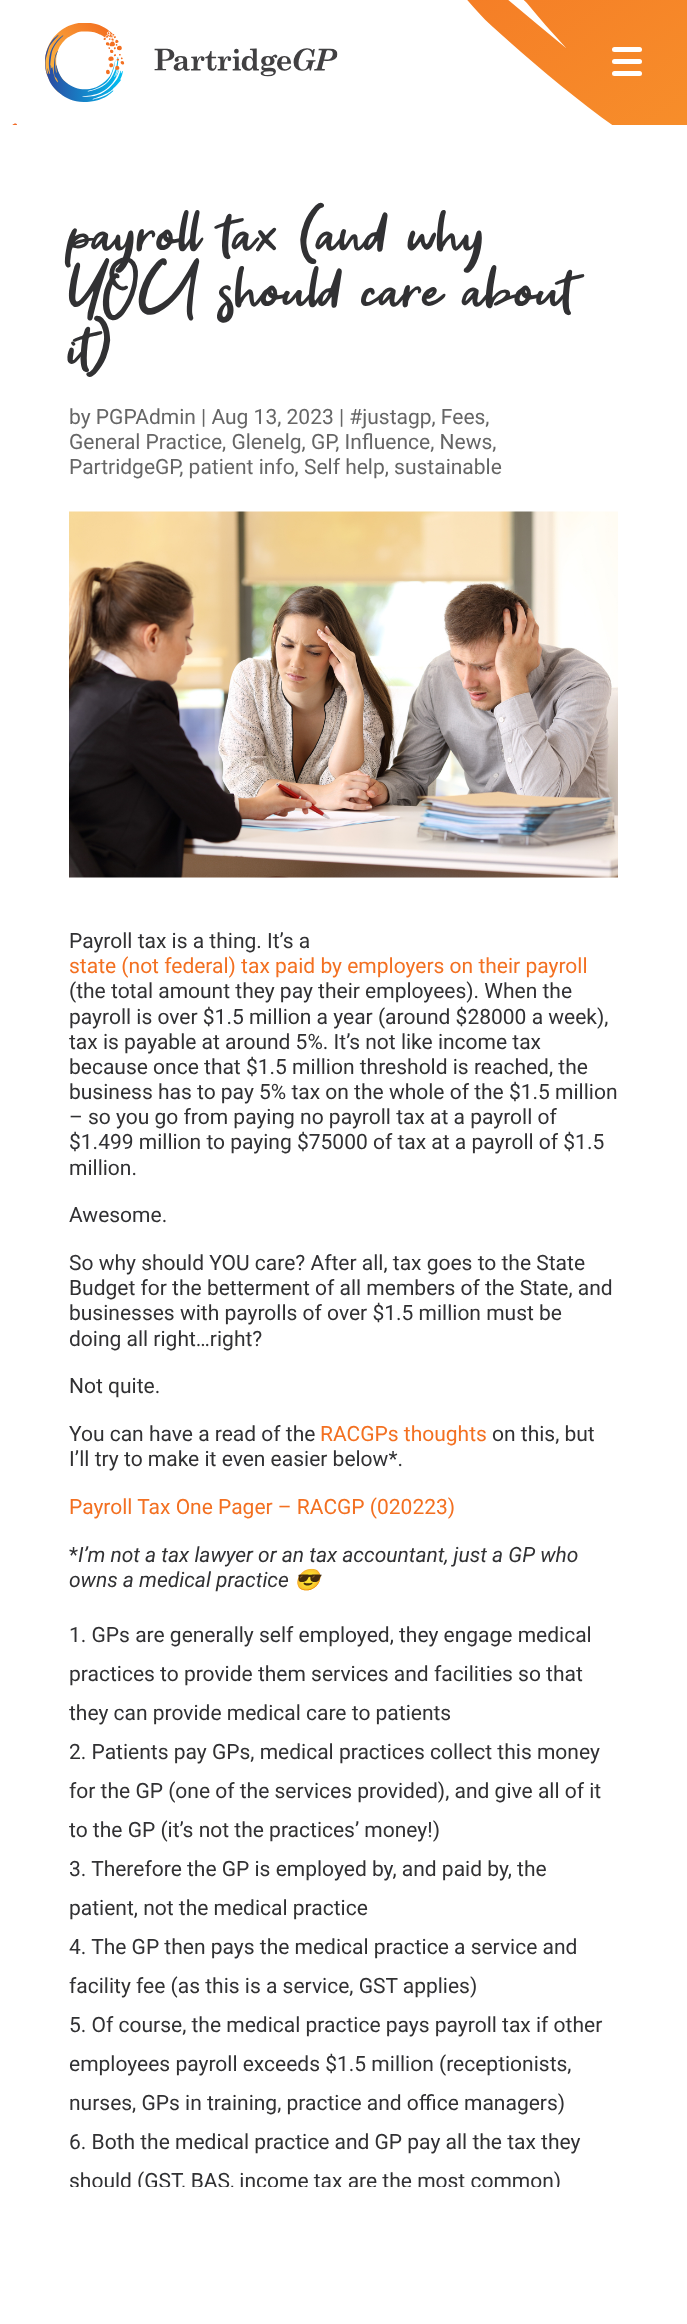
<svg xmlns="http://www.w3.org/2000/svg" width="687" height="2324">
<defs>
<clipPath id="clip1"><rect y="125" width="687" height="2062"/></clipPath>
</defs>
<rect width="100%" height="100%" fill="#fff"/>
<image x="12" y="0" width="675" height="125" href="media/1.png"/>
<image x="45" y="23" width="293" height="79" href="media/2.png"/>
<rect x="612" y="59" width="30" height="5" rx="2.5" fill="#fff"/>
<rect x="612" y="47" width="30" height="5" rx="2.5" fill="#fff"/>
<rect x="612" y="71" width="30" height="5" rx="2.5" fill="#fff"/>
<text x="69" y="263" style="font-family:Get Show;font-size:81px;fill:#313133">payroll tax (and why</text>
<text x="69" y="319" style="font-family:Get Show;font-size:81px;fill:#313133">YOU should care about</text>
<text x="69" y="376" style="font-family:Get Show;font-size:81px;fill:#313133">it)</text>
<text x="69" y="424" style="font-family:Roboto;font-size:21px;fill:#666">by PGPAdmin | Aug 13, 2023 | #justagp, Fees,</text>
<text x="69" y="449" style="font-family:Roboto;font-size:21px;fill:#666">General Practice, Glenelg, GP, Influence, News,</text>
<text x="69" y="474" style="font-family:Roboto;font-size:21px;fill:#666">PartridgeGP, patient info, Self help, sustainable</text>
<image x="69" y="511" width="549" height="367" href="media/3.png"/>
<text x="69" y="948" style="font-family:Roboto;font-size:21px;fill:#313133">Payroll tax is a thing. It’s a</text>
<text x="69" y="973" style="font-family:Roboto;font-size:21px;fill:#f37021">state (not federal) tax paid by employers on their payroll</text>
<text x="69" y="998" style="font-family:Roboto;font-size:21px;fill:#313133">(the total amount they pay their employees). When the</text>
<text x="69" y="1024" style="font-family:Roboto;font-size:21px;fill:#313133">payroll is over $1.5 million a year (around $28000 a week),</text>
<text x="69" y="1049" style="font-family:Roboto;font-size:21px;fill:#313133">tax is payable at around 5%. It’s not like income tax</text>
<text x="69" y="1074" style="font-family:Roboto;font-size:21px;fill:#313133">because once that $1.5 million threshold is reached, the</text>
<text x="69" y="1099" style="font-family:Roboto;font-size:21px;fill:#313133">business has to pay 5% tax on the whole of the $1.5 million</text>
<text x="69" y="1124" style="font-family:Roboto;font-size:21px;fill:#313133">– so you go from paying no payroll tax at a payroll of</text>
<text x="69" y="1149" style="font-family:Roboto;font-size:21px;fill:#313133">$1.499 million to paying $75000 of tax at a payroll of $1.5</text>
<text x="69" y="1175" style="font-family:Roboto;font-size:21px;fill:#313133">million.</text>
<text x="69" y="1222" style="font-family:Roboto;font-size:21px;fill:#313133">Awesome.</text>
<text x="69" y="1270" style="font-family:Roboto;font-size:21px;fill:#313133">So why should YOU care? After all, tax goes to the State</text>
<text x="69" y="1295" style="font-family:Roboto;font-size:21px;fill:#313133">Budget for the betterment of all members of the State, and</text>
<text x="69" y="1320" style="font-family:Roboto;font-size:21px;fill:#313133">businesses with payrolls of over $1.5 million must be</text>
<text x="69" y="1346" style="font-family:Roboto;font-size:21px;fill:#313133">doing all right…right?</text>
<text x="69" y="1393" style="font-family:Roboto;font-size:21px;fill:#313133">Not quite.</text>
<text x="69" y="1441" style="font-family:Roboto;font-size:21px;fill:#313133">You can have a read of the</text>
<text x="320" y="1441" style="font-family:Roboto;font-size:21px;fill:#f37021">RACGPs thoughts</text>
<text x="492" y="1441" style="font-family:Roboto;font-size:21px;fill:#313133">on this, but</text>
<text x="69" y="1466" style="font-family:Roboto;font-size:21px;fill:#313133">I’ll try to make it even easier below*.</text>
<text x="69" y="1514" style="font-family:Roboto;font-size:21px;fill:#f37021">Payroll Tax One Pager – RACGP (020223)</text>
<text x="69" y="1562" style="font-family:Roboto;font-size:21px;fill:#313133">*</text>
<text x="78" y="1562" style="font-family:Roboto;font-size:21px;font-style:italic;fill:#313133">I’m not a tax lawyer or an tax accountant, just a GP who</text>
<text x="69" y="1587" style="font-family:Roboto;font-size:21px;font-style:italic;fill:#313133">owns a medical practice</text>
<text x="294" y="1587" style="font-family:Noto Color Emoji;font-size:21px;font-style:italic;fill:#313133">😎</text>
<text x="69" y="1642" style="font-family:Roboto;font-size:21px;fill:#313133">1. GPs are generally self employed, they engage medical</text>
<text x="69" y="1681" style="font-family:Roboto;font-size:21px;fill:#313133">practices to provide them services and facilities so that</text>
<text x="69" y="1720" style="font-family:Roboto;font-size:21px;fill:#313133">they can provide medical care to patients</text>
<text x="69" y="1759" style="font-family:Roboto;font-size:21px;fill:#313133">2. Patients pay GPs, medical practices collect this money</text>
<text x="69" y="1798" style="font-family:Roboto;font-size:21px;fill:#313133">for the GP (one of the services provided), and give all of it</text>
<text x="69" y="1837" style="font-family:Roboto;font-size:21px;fill:#313133">to the GP (it’s not the practices’ money!)</text>
<text x="69" y="1876" style="font-family:Roboto;font-size:21px;fill:#313133">3. Therefore the GP is employed by, and paid by, the</text>
<text x="69" y="1915" style="font-family:Roboto;font-size:21px;fill:#313133">patient, not the medical practice</text>
<text x="69" y="1954" style="font-family:Roboto;font-size:21px;fill:#313133">4. The GP then pays the medical practice a service and</text>
<text x="69" y="1993" style="font-family:Roboto;font-size:21px;fill:#313133">facility fee (as this is a service, GST applies)</text>
<text x="69" y="2032" style="font-family:Roboto;font-size:21px;fill:#313133">5. Of course, the medical practice pays payroll tax if other</text>
<text x="69" y="2071" style="font-family:Roboto;font-size:21px;fill:#313133">employees payroll exceeds $1.5 million (receptionists,</text>
<text x="69" y="2110" style="font-family:Roboto;font-size:21px;fill:#313133">nurses, GPs in training, practice and office managers)</text>
<text x="69" y="2149" style="font-family:Roboto;font-size:21px;fill:#313133">6. Both the medical practice and GP pay all the tax they</text>
<g clip-path="url(#clip1)">
<text x="69" y="2188" style="font-family:Roboto;font-size:21px;fill:#313133">should (GST, BAS, income tax are the most common)</text>
</g>
</svg>
